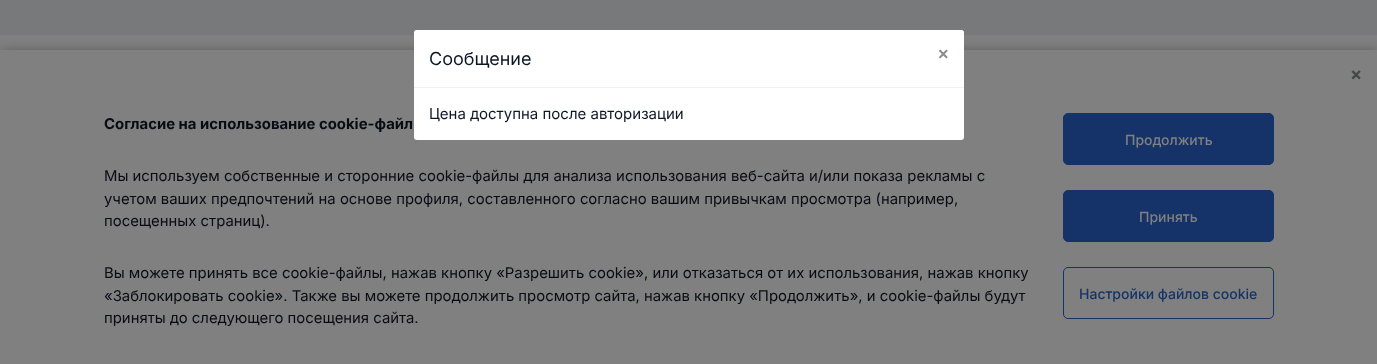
<svg xmlns="http://www.w3.org/2000/svg" width="1377" height="364">
<rect width="100%" height="100%" fill="#808080"/>
<rect width="1377" height="35" fill="#78797a"/>
<rect x="1" y="51" width="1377" height="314" fill="#0000004d" filter="blur(6px)"/>
<rect y="50" width="1377" height="314" fill="#808080"/>
<rect x="414" y="30" width="550" height="110" rx="3" fill="#fff"/>
<path d="M417 30h544c1.5 0 3 1.5 3 3v55h-550v-55c0-1.5 1.5-3 3-3z" fill="#fff"/>
<rect x="414" y="87" width="550" height="1" fill="#f0f1f4"/>
<text x="429" y="65" style="font-family:Inter;font-size:18px;fill:#0e1726">Сообщение</text>
<text x="938" y="60" style="font-family:Liberation Sans;font-size:18px;font-weight:bold;fill:#878b93">×</text>
<text x="429" y="119" style="font-family:Inter;font-size:15px;fill:#0e1726">Цена доступна после авторизации</text>
<text x="1350" y="80" style="font-family:Inter;font-size:18px;font-weight:bold;fill:#44464a">×</text>
<text x="104" y="129" style="font-family:Inter;font-size:14.88px;font-weight:bold;fill:#070c13">Согласие на использование cookie-файл</text>
<text x="104" y="181" style="font-family:Inter;font-size:14.88px;fill:#070c13">Мы используем собственные и сторонние cookie-файлы для анализа использования веб-сайта и/или показа рекламы с</text>
<text x="104" y="204" style="font-family:Inter;font-size:14.88px;fill:#070c13">учетом ваших предпочтений на основе профиля, составленного согласно вашим привычкам просмотра (например,</text>
<text x="104" y="226" style="font-family:Inter;font-size:14.88px;fill:#070c13">посещенных страниц).</text>
<text x="104" y="278" style="font-family:Inter;font-size:14.88px;fill:#070c13">Вы можете принять все cookie-файлы, нажав кнопку «Разрешить cookie», или отказаться от их использования, нажав кнопку</text>
<text x="104" y="301" style="font-family:Inter;font-size:14.88px;fill:#070c13">«Заблокировать cookie». Также вы можете продолжить просмотр сайта, нажав кнопку «Продолжить», и cookie-файлы будут</text>
<text x="104" y="323" style="font-family:Inter;font-size:14.88px;fill:#070c13">приняты до следующего посещения сайта.</text>
<rect x="1063.5" y="113.5" width="210" height="51" rx="4.5" fill="#153368" stroke="#153368"/>
<text x="1125" y="145" style="font-family:Inter;font-size:14px;font-weight:500;fill:#808080">Продолжить</text>
<rect x="1063.5" y="190.5" width="210" height="51" rx="4.5" fill="#153368" stroke="#153368"/>
<text x="1139" y="222" style="font-family:Inter;font-size:14px;font-weight:500;fill:#808080">Принять</text>
<rect x="1063.5" y="267.5" width="210" height="51" rx="4.5" fill="none" stroke="#153368"/>
<text x="1079" y="299" style="font-family:Inter;font-size:14px;font-weight:500;fill:#153368">Настройки файлов cookie</text>
</svg>
